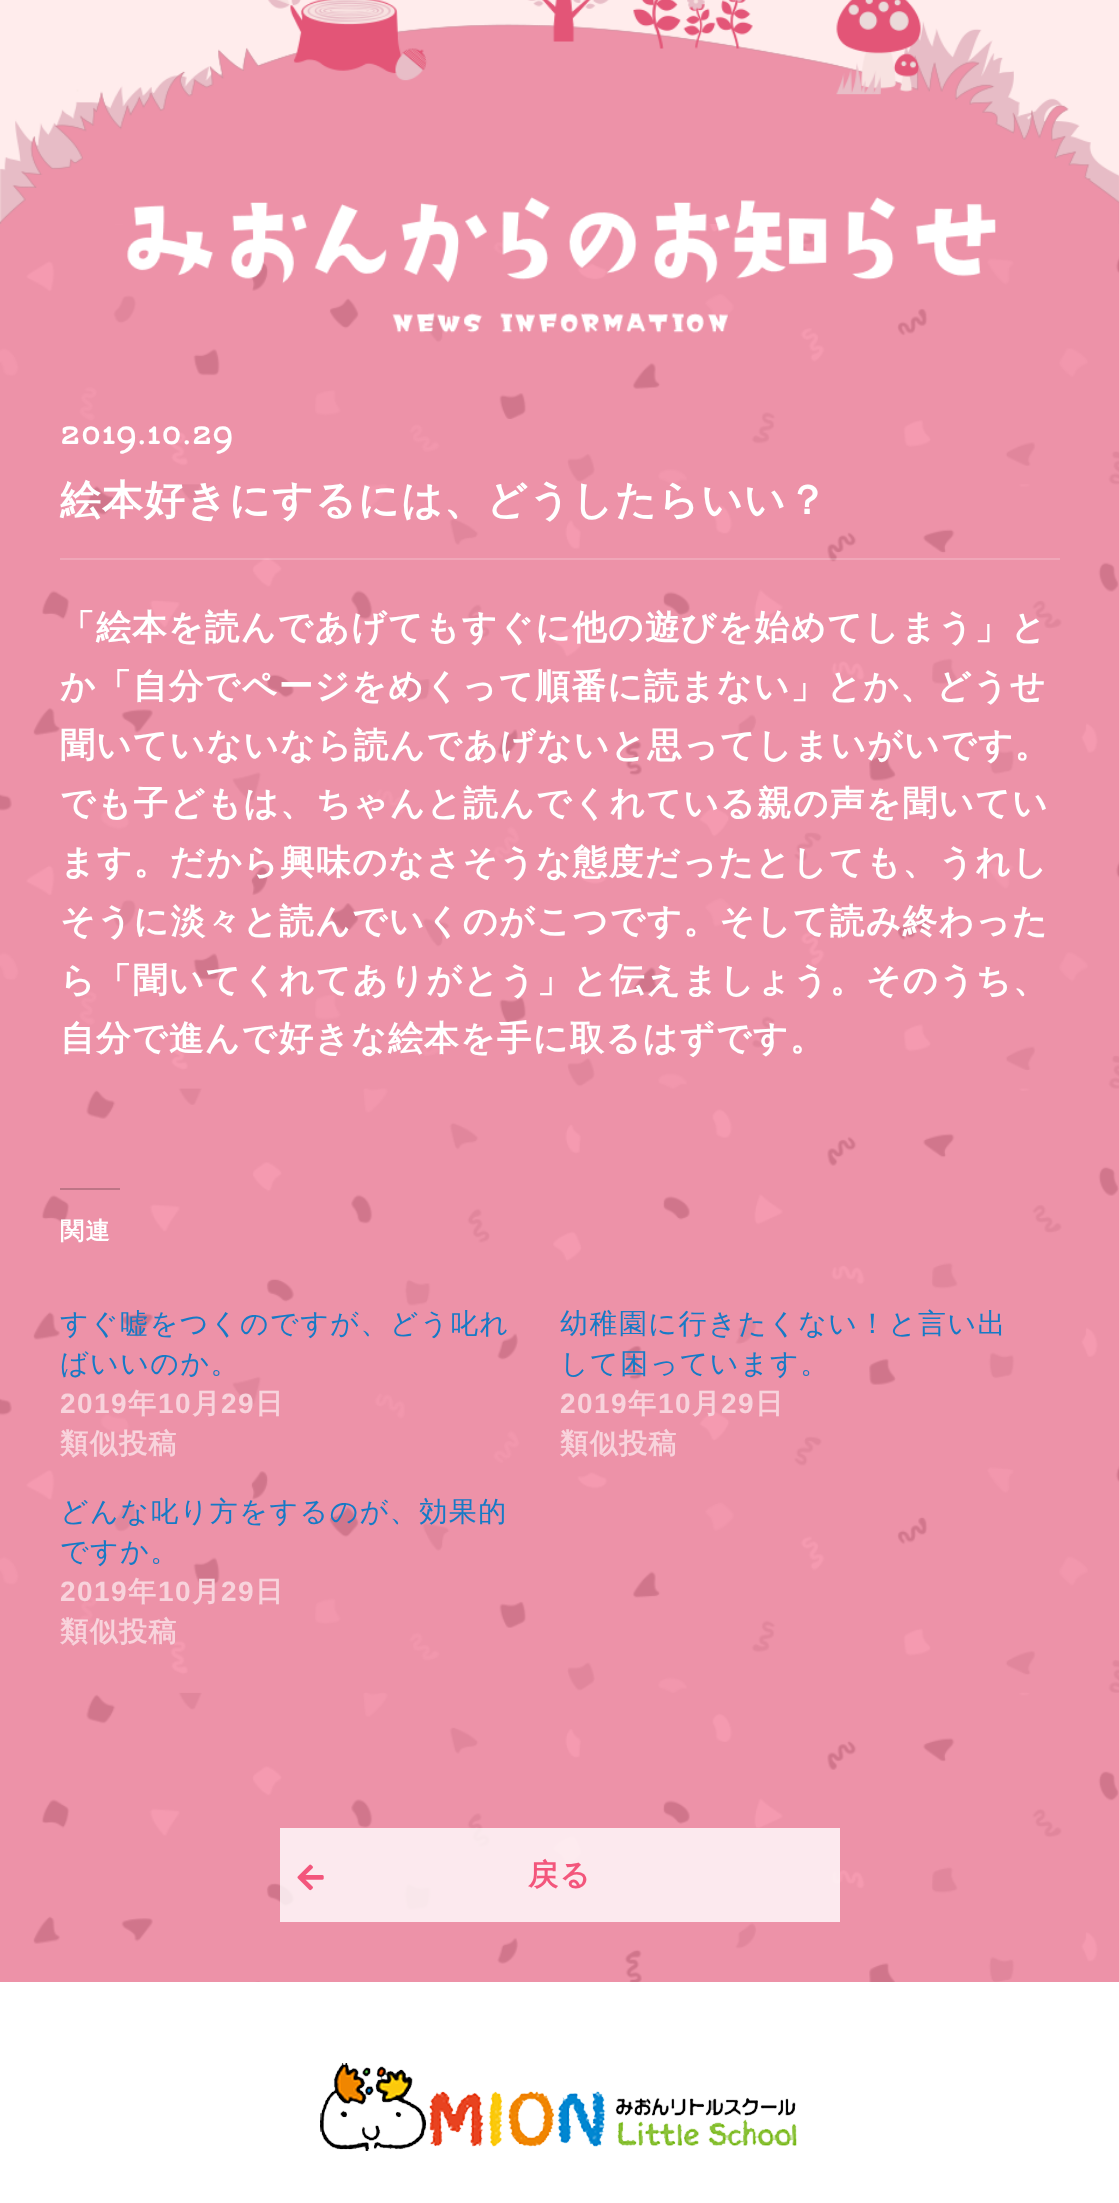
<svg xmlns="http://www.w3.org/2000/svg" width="1119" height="2203">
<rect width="100%" height="100%" fill="#fff"/>
<image x="0" y="0" width="1119" height="1982" href="media/1.png"/>
<image x="127" y="196" width="869" height="137" href="media/2.png"/>
<rect x="60" y="558" width="1000" height="2" fill="#ffffff33"/>
<text x="60" y="444" style="font-family:Flamenco;font-size:43px;font-weight:bold;letter-spacing:1.45px;fill:#fff">2019.10.29</text>
<text x="60" y="514" style="font-family:WenQuanYi Zen Hei;font-size:40.6px;font-weight:bold;letter-spacing:1.45px;fill:#fff">絵本好きにするには、どうしたらいい？</text>
<text x="60" y="639" style="font-family:WenQuanYi Zen Hei;font-size:34.55px;font-weight:bold;letter-spacing:1.45px;fill:#fff">「絵本を読んであげてもすぐに他の遊びを始めてしまう」と</text>
<text x="60" y="698" style="font-family:WenQuanYi Zen Hei;font-size:34.55px;font-weight:bold;letter-spacing:1.45px;fill:#fff">か「自分でページをめくって順番に読まない」とか、どうせ</text>
<text x="60" y="757" style="font-family:WenQuanYi Zen Hei;font-size:34.55px;font-weight:bold;letter-spacing:1.45px;fill:#fff">聞いていないなら読んであげないと思ってしまいがいです。</text>
<text x="60" y="815" style="font-family:WenQuanYi Zen Hei;font-size:34.55px;font-weight:bold;letter-spacing:1.45px;fill:#fff">でも子どもは、ちゃんと読んでくれている親の声を聞いてい</text>
<text x="60" y="874" style="font-family:WenQuanYi Zen Hei;font-size:34.55px;font-weight:bold;letter-spacing:1.45px;fill:#fff">ます。だから興味のなさそうな態度だったとしても、うれし</text>
<text x="60" y="933" style="font-family:WenQuanYi Zen Hei;font-size:34.55px;font-weight:bold;letter-spacing:1.45px;fill:#fff">そうに淡々と読んでいくのがこつです。そして読み終わった</text>
<text x="60" y="992" style="font-family:WenQuanYi Zen Hei;font-size:34.55px;font-weight:bold;letter-spacing:1.45px;fill:#fff">ら「聞いてくれてありがとう」と伝えましょう。そのうち、</text>
<text x="60" y="1050" style="font-family:WenQuanYi Zen Hei;font-size:34.55px;font-weight:bold;letter-spacing:1.45px;fill:#fff">自分で進んで好きな絵本を手に取るはずです。</text>
<rect x="60" y="1188" width="60" height="2" fill="#be7586"/>
<text x="60" y="1239" style="font-family:WenQuanYi Zen Hei;font-size:24px;font-weight:bold;letter-spacing:1.45px;fill:#fff">関連</text>
<text x="60" y="1333" style="font-family:WenQuanYi Zen Hei;font-size:28px;font-weight:500;letter-spacing:1.45px;fill:#167ac6">すぐ嘘をつくのですが、どう叱れ</text>
<text x="60" y="1373" style="font-family:WenQuanYi Zen Hei;font-size:28px;font-weight:500;letter-spacing:1.45px;fill:#167ac6">ばいいのか。</text>
<text x="60" y="1413" style="font-family:Liberation Sans;font-size:28px;font-weight:bold;letter-spacing:1.45px;fill:#f8d3dc">2019</text>
<text x="128" y="1413" style="font-family:WenQuanYi Zen Hei;font-size:28px;font-weight:bold;letter-spacing:1.45px;fill:#f8d3dc">年</text>
<text x="158" y="1413" style="font-family:Liberation Sans;font-size:28px;font-weight:bold;letter-spacing:1.45px;fill:#f8d3dc">10</text>
<text x="192" y="1413" style="font-family:WenQuanYi Zen Hei;font-size:28px;font-weight:bold;letter-spacing:1.45px;fill:#f8d3dc">月</text>
<text x="221" y="1413" style="font-family:Liberation Sans;font-size:28px;font-weight:bold;letter-spacing:1.45px;fill:#f8d3dc">29</text>
<text x="255" y="1413" style="font-family:WenQuanYi Zen Hei;font-size:28px;font-weight:bold;letter-spacing:1.45px;fill:#f8d3dc">日</text>
<text x="60" y="1453" style="font-family:WenQuanYi Zen Hei;font-size:28px;font-weight:bold;letter-spacing:1.45px;fill:#f8d3dc">類似投稿</text>
<text x="560" y="1333" style="font-family:WenQuanYi Zen Hei;font-size:28px;font-weight:500;letter-spacing:1.45px;fill:#167ac6">幼稚園に行きたくない！と言い出</text>
<text x="560" y="1373" style="font-family:WenQuanYi Zen Hei;font-size:28px;font-weight:500;letter-spacing:1.45px;fill:#167ac6">して困っています。</text>
<text x="560" y="1413" style="font-family:Liberation Sans;font-size:28px;font-weight:bold;letter-spacing:1.45px;fill:#f8d3dc">2019</text>
<text x="628" y="1413" style="font-family:WenQuanYi Zen Hei;font-size:28px;font-weight:bold;letter-spacing:1.45px;fill:#f8d3dc">年</text>
<text x="658" y="1413" style="font-family:Liberation Sans;font-size:28px;font-weight:bold;letter-spacing:1.45px;fill:#f8d3dc">10</text>
<text x="692" y="1413" style="font-family:WenQuanYi Zen Hei;font-size:28px;font-weight:bold;letter-spacing:1.45px;fill:#f8d3dc">月</text>
<text x="721" y="1413" style="font-family:Liberation Sans;font-size:28px;font-weight:bold;letter-spacing:1.45px;fill:#f8d3dc">29</text>
<text x="755" y="1413" style="font-family:WenQuanYi Zen Hei;font-size:28px;font-weight:bold;letter-spacing:1.45px;fill:#f8d3dc">日</text>
<text x="560" y="1453" style="font-family:WenQuanYi Zen Hei;font-size:28px;font-weight:bold;letter-spacing:1.45px;fill:#f8d3dc">類似投稿</text>
<text x="60" y="1521" style="font-family:WenQuanYi Zen Hei;font-size:28px;font-weight:500;letter-spacing:1.45px;fill:#167ac6">どんな叱り方をするのが、効果的</text>
<text x="60" y="1561" style="font-family:WenQuanYi Zen Hei;font-size:28px;font-weight:500;letter-spacing:1.45px;fill:#167ac6">ですか。</text>
<text x="60" y="1601" style="font-family:Liberation Sans;font-size:28px;font-weight:bold;letter-spacing:1.45px;fill:#f8d3dc">2019</text>
<text x="128" y="1601" style="font-family:WenQuanYi Zen Hei;font-size:28px;font-weight:bold;letter-spacing:1.45px;fill:#f8d3dc">年</text>
<text x="158" y="1601" style="font-family:Liberation Sans;font-size:28px;font-weight:bold;letter-spacing:1.45px;fill:#f8d3dc">10</text>
<text x="192" y="1601" style="font-family:WenQuanYi Zen Hei;font-size:28px;font-weight:bold;letter-spacing:1.45px;fill:#f8d3dc">月</text>
<text x="221" y="1601" style="font-family:Liberation Sans;font-size:28px;font-weight:bold;letter-spacing:1.45px;fill:#f8d3dc">29</text>
<text x="255" y="1601" style="font-family:WenQuanYi Zen Hei;font-size:28px;font-weight:bold;letter-spacing:1.45px;fill:#f8d3dc">日</text>
<text x="60" y="1641" style="font-family:WenQuanYi Zen Hei;font-size:28px;font-weight:bold;letter-spacing:1.45px;fill:#f8d3dc">類似投稿</text>
<rect x="280" y="1828" width="560" height="94" fill="#ffffffcc"/>
<image x="297" y="1864" width="27" height="27" href="media/3.png"/>
<text x="528" y="1885" style="font-family:WenQuanYi Zen Hei;font-size:30px;font-weight:bold;letter-spacing:1.45px;fill:#f3567c">戻る</text>
<image x="320" y="2063" width="477" height="88" href="media/4.png"/>
</svg>
